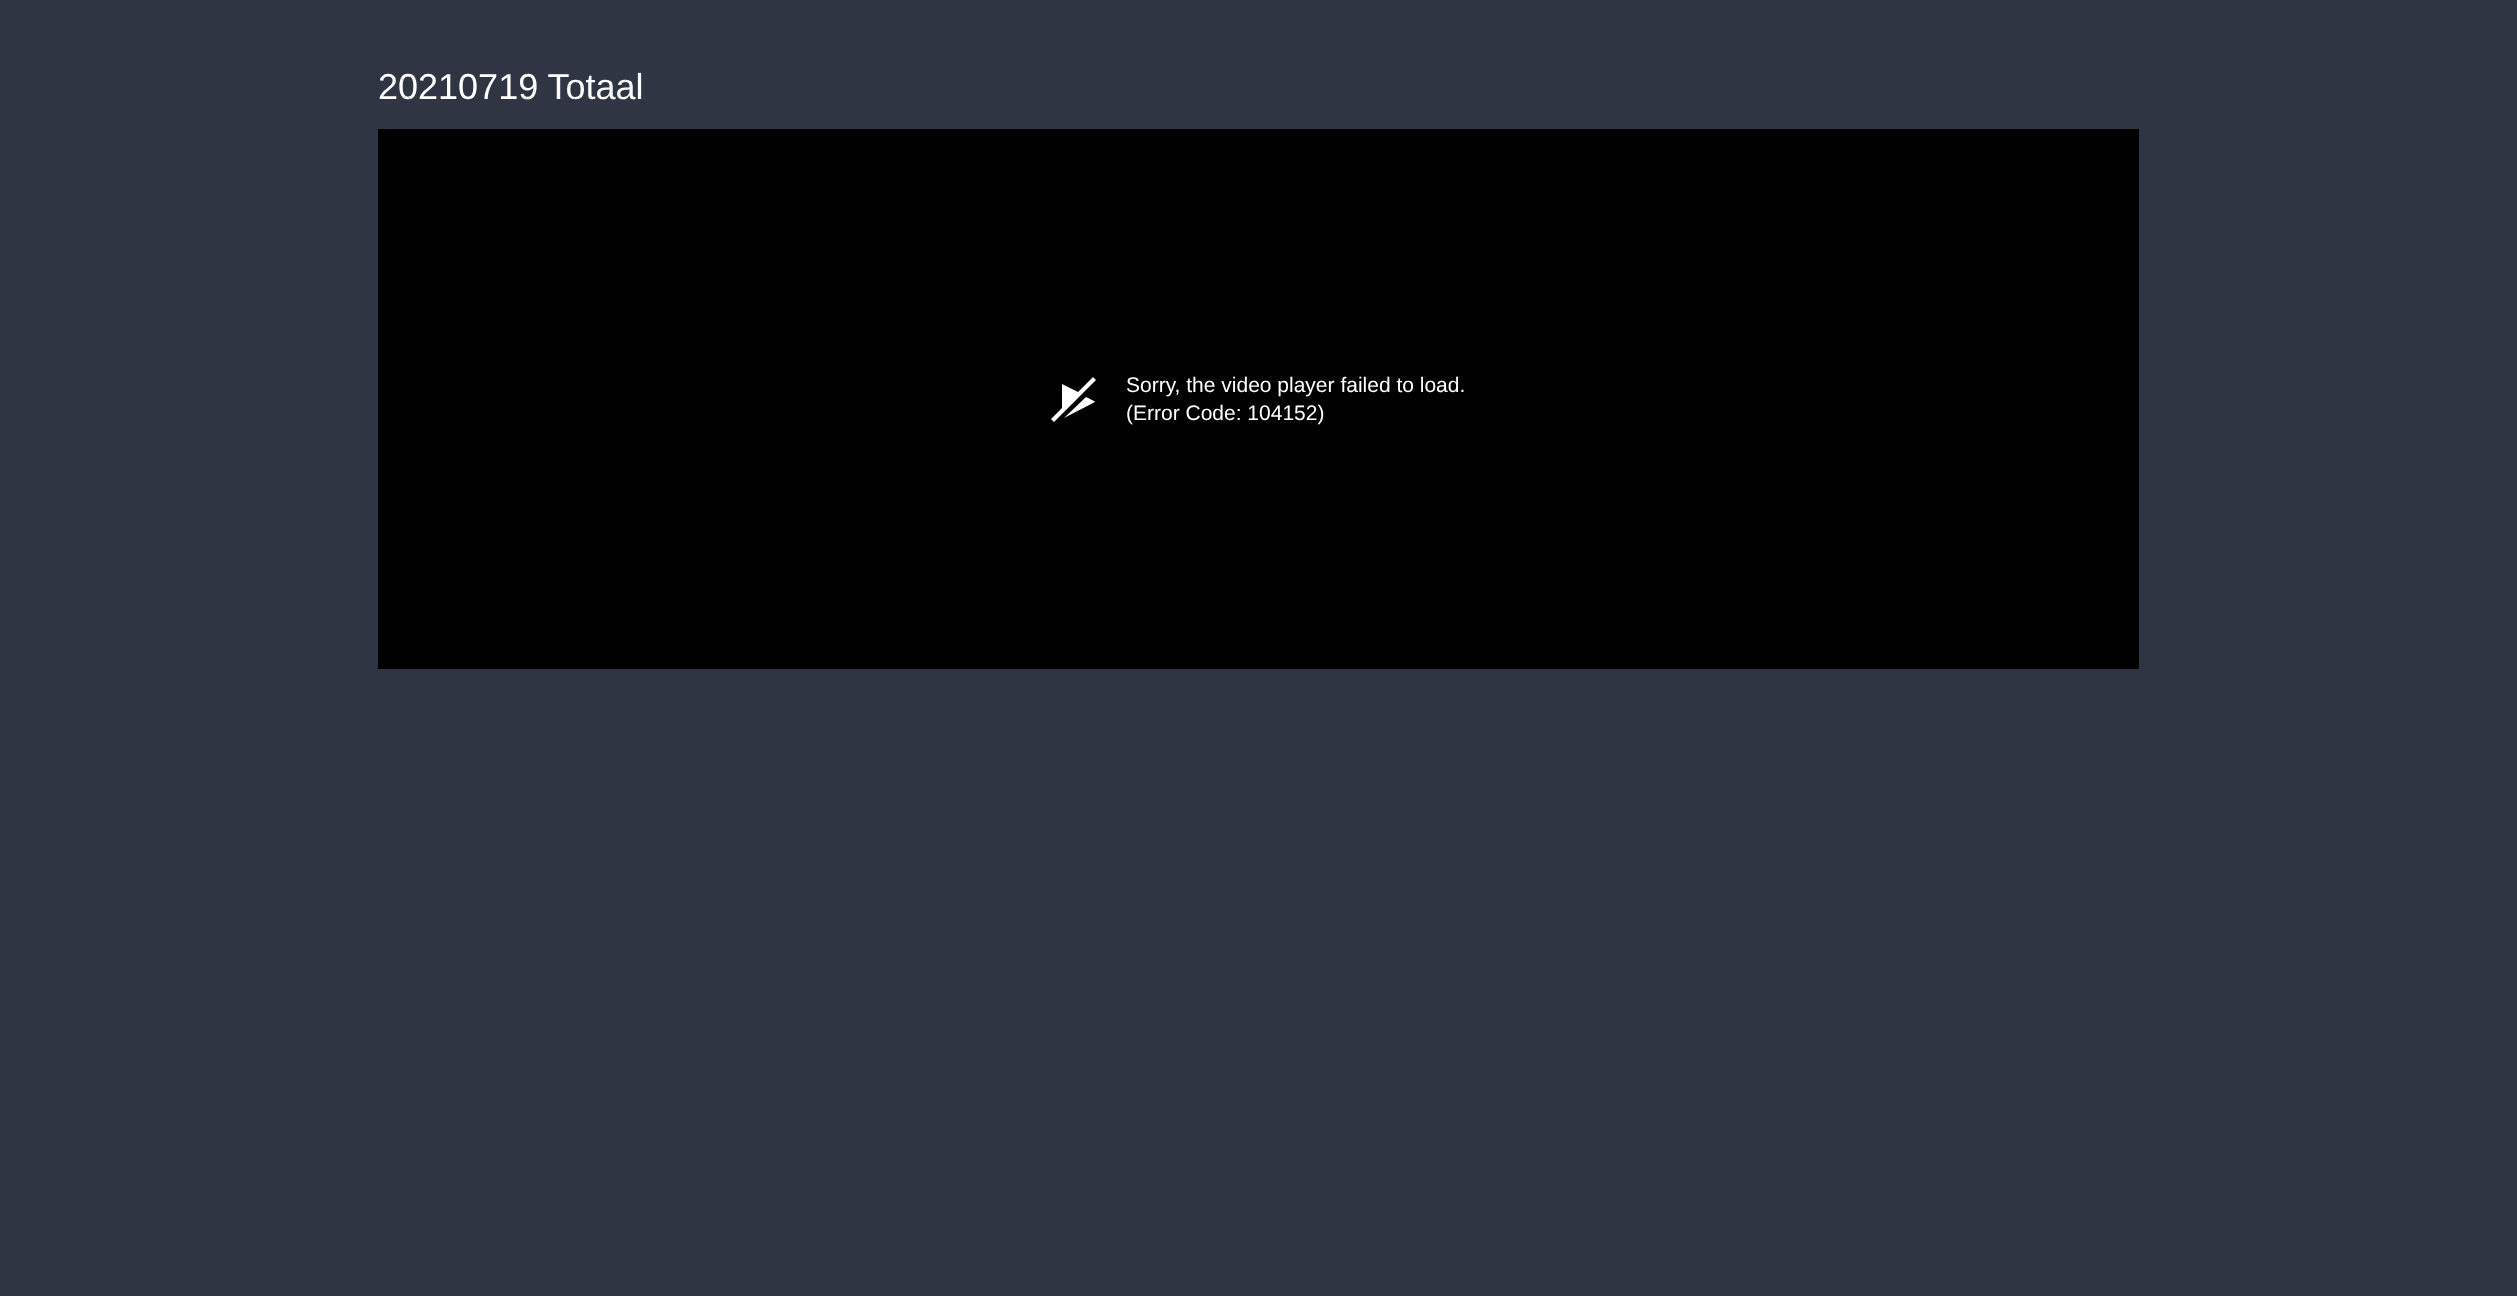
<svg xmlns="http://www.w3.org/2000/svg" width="2517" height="1296">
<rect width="100%" height="100%" fill="#2f3542"/>
<text x="378" y="99" style="font-family:Liberation Sans;font-size:36px;fill:#fff">20210719 Totaal</text>
<rect x="378" y="129" width="1761" height="540" fill="#000"/>
<path d="M1095 402l-31 16l22-21c8 4 10 5 9 5zm-2-25l-15 15l-16-8v24l-11 11l3 3l42-42z" fill="#fff"/>
<text x="1126" y="392" style="font-family:Liberation Sans;font-size:21px;fill:#fff">Sorry, the video player failed to load.</text>
<text x="1126" y="420" style="font-family:Liberation Sans;font-size:21px;fill:#fff">(Error Code: 104152)</text>
</svg>
